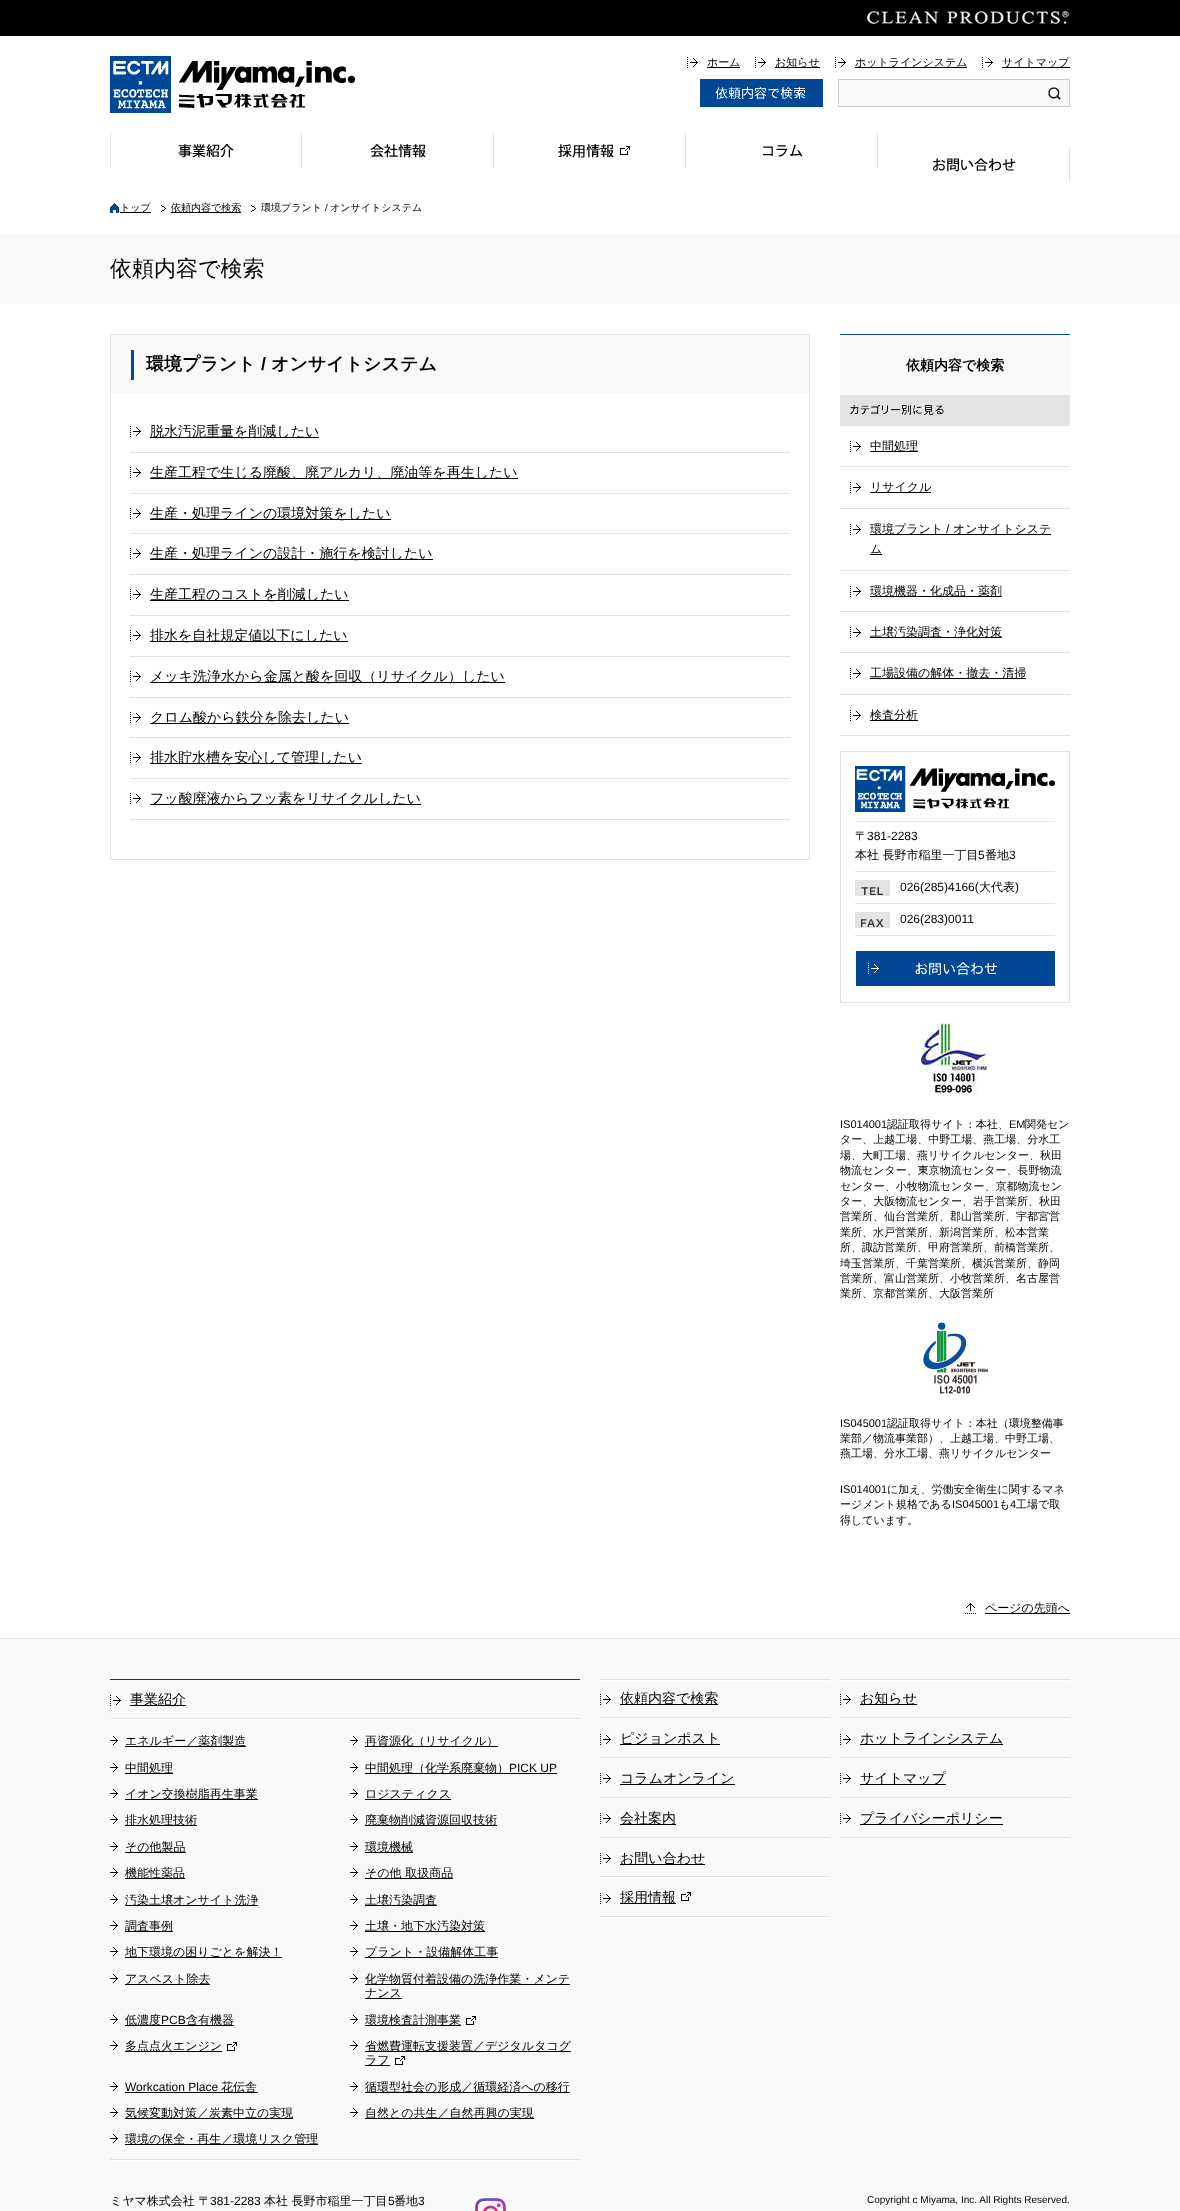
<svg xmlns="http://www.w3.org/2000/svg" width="1180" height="2211">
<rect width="100%" height="100%" fill="#f9f9f9"/>
<rect width="1180" height="36" fill="#000"/>
<image x="867" y="11" width="202" height="13" href="media/1.png"/>
<rect y="36" width="1180" height="1602" fill="#fff"/>
<image x="110" y="56" width="245" height="57" href="media/2.png"/>
<image x="687" y="57" width="11" height="11" href="media/3.png"/>
<rect x="707" y="67" width="33" height="1" fill="#000"/>
<text x="707" y="66" style="font-family:WenQuanYi Zen Hei;font-size:11px;font-weight:500;fill:#000">ホーム</text>
<image x="755" y="57" width="11" height="11" href="media/3.png"/>
<rect x="775" y="67" width="45" height="1" fill="#000"/>
<text x="775" y="66" style="font-family:WenQuanYi Zen Hei;font-size:11px;font-weight:500;fill:#000">お知らせ</text>
<image x="835" y="57" width="11" height="11" href="media/3.png"/>
<rect x="855" y="67" width="112" height="1" fill="#000"/>
<text x="855" y="66" style="font-family:WenQuanYi Zen Hei;font-size:11px;font-weight:500;fill:#000">ホットラインシステム</text>
<image x="982" y="57" width="11" height="11" href="media/3.png"/>
<rect x="1002" y="67" width="68" height="1" fill="#000"/>
<text x="1002" y="66" style="font-family:WenQuanYi Zen Hei;font-size:11px;font-weight:500;fill:#000">サイトマップ</text>
<image x="700" y="79" width="123" height="28" href="media/4.png"/>
<rect x="838.5" y="79.5" width="231" height="27" fill="#f9f9f9" stroke="#ccc"/>
<image x="1048" y="87" width="13" height="13" href="media/5.png"/>
<image x="110" y="133" width="192" height="35" href="media/6.png"/>
<image x="370" y="133" width="124" height="35" href="media/7.png"/>
<image x="558" y="133" width="128" height="35" href="media/8.png"/>
<image x="763" y="133" width="115" height="35" href="media/9.png"/>
<image x="933" y="147" width="137" height="35" href="media/10.png"/>
<image x="110" y="203" width="9" height="10" href="media/11.png"/>
<rect x="120" y="212" width="31" height="1" fill="#000"/>
<text x="120" y="211" style="font-family:WenQuanYi Zen Hei;font-size:10px;font-weight:500;fill:#000">トップ</text>
<image x="161" y="205" width="5" height="7" href="media/12.png"/>
<rect x="171" y="212" width="70" height="1" fill="#000"/>
<text x="171" y="211" style="font-family:WenQuanYi Zen Hei;font-size:10px;font-weight:500;fill:#000">依頼内容で検索</text>
<image x="251" y="205" width="5" height="7" href="media/12.png"/>
<text x="261" y="211" style="font-family:WenQuanYi Zen Hei;font-size:10px;font-weight:500;fill:#000">環境プラント</text>
<text x="325" y="211" style="font-family:Liberation Sans;font-size:10px;fill:#000">/</text>
<text x="330" y="211" style="font-family:WenQuanYi Zen Hei;font-size:10px;font-weight:500;fill:#000">オンサイトシステム</text>
<rect y="234" width="1180" height="70" fill="#f9f9f9"/>
<text x="110" y="276" style="font-family:WenQuanYi Zen Hei;font-size:22px;font-weight:500;fill:#000">依頼内容で検索</text>
<rect x="110.5" y="334.5" width="699" height="525" fill="none" stroke="#e3e3e3"/>
<rect x="111" y="335" width="698" height="58" fill="#f9f9f9"/>
<rect x="131" y="350" width="3" height="30" fill="#004795"/>
<text x="146" y="370" style="font-family:WenQuanYi Zen Hei;font-size:18px;font-weight:bold;fill:#000">環境プラント</text>
<text x="261" y="370" style="font-family:Liberation Sans;font-size:18px;font-weight:bold;fill:#000">/</text>
<text x="271" y="370" style="font-family:WenQuanYi Zen Hei;font-size:18px;font-weight:bold;fill:#000">オンサイトシステム</text>
<image x="130" y="426" width="11" height="11" href="media/3.png"/>
<rect x="130" y="452" width="660" height="1" fill="#e3e3e3"/>
<rect x="150" y="437" width="169" height="1" fill="#000"/>
<text x="150" y="436" style="font-family:WenQuanYi Zen Hei;font-size:14px;font-weight:500;fill:#000">脱水汚泥重量を削減したい</text>
<image x="130" y="467" width="11" height="11" href="media/3.png"/>
<rect x="130" y="493" width="660" height="1" fill="#e3e3e3"/>
<rect x="150" y="478" width="368" height="1" fill="#000"/>
<text x="150" y="477" style="font-family:WenQuanYi Zen Hei;font-size:14px;font-weight:500;fill:#000">生産工程で生じる廃酸、廃アルカリ、廃油等を再生したい</text>
<image x="130" y="508" width="11" height="11" href="media/3.png"/>
<rect x="130" y="533" width="660" height="1" fill="#e3e3e3"/>
<rect x="150" y="519" width="241" height="1" fill="#000"/>
<text x="150" y="518" style="font-family:WenQuanYi Zen Hei;font-size:14px;font-weight:500;fill:#000">生産・処理ラインの環境対策をしたい</text>
<image x="130" y="548" width="11" height="11" href="media/3.png"/>
<rect x="130" y="574" width="660" height="1" fill="#e3e3e3"/>
<rect x="150" y="559" width="283" height="1" fill="#000"/>
<text x="150" y="558" style="font-family:WenQuanYi Zen Hei;font-size:14px;font-weight:500;fill:#000">生産・処理ラインの設計・施行を検討したい</text>
<image x="130" y="589" width="11" height="11" href="media/3.png"/>
<rect x="130" y="615" width="660" height="1" fill="#e3e3e3"/>
<rect x="150" y="600" width="199" height="1" fill="#000"/>
<text x="150" y="599" style="font-family:WenQuanYi Zen Hei;font-size:14px;font-weight:500;fill:#000">生産工程のコストを削減したい</text>
<image x="130" y="630" width="11" height="11" href="media/3.png"/>
<rect x="130" y="656" width="660" height="1" fill="#e3e3e3"/>
<rect x="150" y="641" width="198" height="1" fill="#000"/>
<text x="150" y="640" style="font-family:WenQuanYi Zen Hei;font-size:14px;font-weight:500;fill:#000">排水を自社規定値以下にしたい</text>
<image x="130" y="671" width="11" height="11" href="media/3.png"/>
<rect x="130" y="697" width="660" height="1" fill="#e3e3e3"/>
<rect x="150" y="682" width="355" height="1" fill="#000"/>
<text x="150" y="681" style="font-family:WenQuanYi Zen Hei;font-size:14px;font-weight:500;fill:#000">メッキ洗浄水から金属と酸を回収（リサイクル）したい</text>
<image x="130" y="712" width="11" height="11" href="media/3.png"/>
<rect x="130" y="737" width="660" height="1" fill="#e3e3e3"/>
<rect x="150" y="723" width="199" height="1" fill="#000"/>
<text x="150" y="722" style="font-family:WenQuanYi Zen Hei;font-size:14px;font-weight:500;fill:#000">クロム酸から鉄分を除去したい</text>
<image x="130" y="752" width="11" height="11" href="media/3.png"/>
<rect x="130" y="778" width="660" height="1" fill="#e3e3e3"/>
<rect x="150" y="763" width="212" height="1" fill="#000"/>
<text x="150" y="762" style="font-family:WenQuanYi Zen Hei;font-size:14px;font-weight:500;fill:#000">排水貯水槽を安心して管理したい</text>
<image x="130" y="793" width="11" height="11" href="media/3.png"/>
<rect x="130" y="819" width="660" height="1" fill="#e3e3e3"/>
<rect x="150" y="804" width="271" height="1" fill="#000"/>
<text x="150" y="803" style="font-family:WenQuanYi Zen Hei;font-size:14px;font-weight:500;fill:#000">フッ酸廃液からフッ素をリサイクルしたい</text>
<rect x="840" y="334" width="230" height="1" fill="#004795"/>
<rect x="840" y="335" width="230" height="60" fill="#f9f9f9"/>
<text x="906" y="370" style="font-family:WenQuanYi Zen Hei;font-size:14px;font-weight:bold;fill:#000">依頼内容で検索</text>
<rect x="840" y="395" width="230" height="31" fill="#e3e3e3"/>
<image x="850" y="405" width="94" height="10" href="media/13.png"/>
<rect x="840" y="466" width="230" height="1" fill="#e3e3e3"/>
<image x="850" y="441" width="11" height="11" href="media/3.png"/>
<rect x="870" y="451" width="48" height="1" fill="#000"/>
<text x="870" y="450" style="font-family:WenQuanYi Zen Hei;font-size:12px;font-weight:500;fill:#000">中間処理</text>
<rect x="840" y="508" width="230" height="1" fill="#e3e3e3"/>
<image x="850" y="482" width="11" height="11" href="media/3.png"/>
<rect x="870" y="492" width="61" height="1" fill="#000"/>
<text x="870" y="491" style="font-family:WenQuanYi Zen Hei;font-size:12px;font-weight:500;fill:#000">リサイクル</text>
<rect x="840" y="570" width="230" height="1" fill="#e3e3e3"/>
<image x="850" y="524" width="11" height="11" href="media/3.png"/>
<rect x="870" y="534" width="181" height="1" fill="#000"/>
<text x="870" y="533" style="font-family:WenQuanYi Zen Hei;font-size:12px;font-weight:500;fill:#000">環境プラント</text>
<text x="946" y="533" style="font-family:Liberation Sans;font-size:12px;fill:#000">/</text>
<text x="953" y="533" style="font-family:WenQuanYi Zen Hei;font-size:12px;font-weight:500;fill:#000">オンサイトシステ</text>
<text x="870" y="553" style="font-family:WenQuanYi Zen Hei;font-size:12px;font-weight:500;fill:#000">ム</text>
<rect x="870" y="554" width="12" height="1" fill="#000"/>
<rect x="840" y="611" width="230" height="1" fill="#e3e3e3"/>
<image x="850" y="586" width="11" height="11" href="media/3.png"/>
<rect x="870" y="596" width="132" height="1" fill="#000"/>
<text x="870" y="595" style="font-family:WenQuanYi Zen Hei;font-size:12px;font-weight:500;fill:#000">環境機器・化成品・薬剤</text>
<rect x="840" y="652" width="230" height="1" fill="#e3e3e3"/>
<image x="850" y="627" width="11" height="11" href="media/3.png"/>
<rect x="870" y="637" width="132" height="1" fill="#000"/>
<text x="870" y="636" style="font-family:WenQuanYi Zen Hei;font-size:12px;font-weight:500;fill:#000">土壌汚染調査・浄化対策</text>
<rect x="840" y="694" width="230" height="1" fill="#e3e3e3"/>
<image x="850" y="668" width="11" height="11" href="media/3.png"/>
<rect x="870" y="678" width="156" height="1" fill="#000"/>
<text x="870" y="677" style="font-family:WenQuanYi Zen Hei;font-size:12px;font-weight:500;fill:#000">工場設備の解体・撤去・清掃</text>
<rect x="840" y="735" width="230" height="1" fill="#e3e3e3"/>
<image x="850" y="710" width="11" height="11" href="media/3.png"/>
<rect x="870" y="720" width="48" height="1" fill="#000"/>
<text x="870" y="719" style="font-family:WenQuanYi Zen Hei;font-size:12px;font-weight:500;fill:#000">検査分析</text>
<rect x="840.5" y="751.5" width="229" height="251" fill="none" stroke="#e3e3e3"/>
<image x="855" y="766" width="200" height="46" href="media/14.png"/>
<rect x="855" y="821" width="200" height="1" fill="#e3e3e3"/>
<rect x="855" y="871" width="200" height="1" fill="#e3e3e3"/>
<text x="855" y="840" style="font-family:WenQuanYi Zen Hei;font-size:12px;font-weight:500;fill:#000">〒</text>
<text x="867" y="840" style="font-family:Liberation Sans;font-size:12px;fill:#000">381-2283</text>
<text x="855" y="859" style="font-family:WenQuanYi Zen Hei;font-size:12px;font-weight:500;fill:#000">本社 長野市稲里一丁目</text>
<text x="978" y="859" style="font-family:Liberation Sans;font-size:12px;fill:#000">5</text>
<text x="985" y="859" style="font-family:WenQuanYi Zen Hei;font-size:12px;font-weight:500;fill:#000">番地</text>
<text x="1009" y="859" style="font-family:Liberation Sans;font-size:12px;fill:#000">3</text>
<rect x="855" y="903" width="200" height="1" fill="#e3e3e3"/>
<image x="855" y="880" width="35" height="16" href="media/15.png"/>
<text x="900" y="891" style="font-family:Liberation Sans;font-size:12px;fill:#000">026(285)4166(</text>
<text x="979" y="891" style="font-family:WenQuanYi Zen Hei;font-size:12px;font-weight:500;fill:#000">大代表</text>
<text x="1015" y="891" style="font-family:Liberation Sans;font-size:12px;fill:#000">)</text>
<rect x="855" y="935" width="200" height="1" fill="#e3e3e3"/>
<image x="855" y="912" width="35" height="16" href="media/16.png"/>
<text x="900" y="923" style="font-family:Liberation Sans;font-size:12px;fill:#000">026(283)0011</text>
<image x="856" y="951" width="199" height="35" href="media/17.png"/>
<image x="921" y="1023" width="69" height="72" href="media/18.png"/>
<text x="840" y="1128" style="font-family:Liberation Sans;font-size:11px;fill:#000">IS014001</text>
<text x="887" y="1128" style="font-family:WenQuanYi Zen Hei;font-size:11px;font-weight:500;fill:#000">認証取得サイト：本社、</text>
<text x="1009" y="1128" style="font-family:Liberation Sans;font-size:11px;fill:#000">EM</text>
<text x="1025" y="1128" style="font-family:WenQuanYi Zen Hei;font-size:11px;font-weight:500;fill:#000">関発セン</text>
<text x="840" y="1143" style="font-family:WenQuanYi Zen Hei;font-size:11px;font-weight:500;fill:#000">ター、上越工場、中野工場、燕工場、分水工</text>
<text x="840" y="1159" style="font-family:WenQuanYi Zen Hei;font-size:11px;font-weight:500;fill:#000">場、大町工場、燕リサイクルセンター、秋田</text>
<text x="840" y="1174" style="font-family:WenQuanYi Zen Hei;font-size:11px;font-weight:500;fill:#000">物流センター、東京物流センター、長野物流</text>
<text x="840" y="1190" style="font-family:WenQuanYi Zen Hei;font-size:11px;font-weight:500;fill:#000">センター、小牧物流センター、京都物流セン</text>
<text x="840" y="1205" style="font-family:WenQuanYi Zen Hei;font-size:11px;font-weight:500;fill:#000">ター、大阪物流センター、岩手営業所、秋田</text>
<text x="840" y="1220" style="font-family:WenQuanYi Zen Hei;font-size:11px;font-weight:500;fill:#000">営業所、仙台営業所、郡山営業所、宇都宮営</text>
<text x="840" y="1236" style="font-family:WenQuanYi Zen Hei;font-size:11px;font-weight:500;fill:#000">業所、水戸営業所、新潟営業所、松本営業</text>
<text x="840" y="1251" style="font-family:WenQuanYi Zen Hei;font-size:11px;font-weight:500;fill:#000">所、諏訪営業所、甲府営業所、前橋営業所、</text>
<text x="840" y="1267" style="font-family:WenQuanYi Zen Hei;font-size:11px;font-weight:500;fill:#000">埼玉営業所、千葉営業所、横浜営業所、静岡</text>
<text x="840" y="1282" style="font-family:WenQuanYi Zen Hei;font-size:11px;font-weight:500;fill:#000">営業所、富山営業所、小牧営業所、名古屋営</text>
<text x="840" y="1297" style="font-family:WenQuanYi Zen Hei;font-size:11px;font-weight:500;fill:#000">業所、京都営業所、大阪営業所</text>
<image x="922" y="1322" width="66" height="72" href="media/19.png"/>
<text x="840" y="1427" style="font-family:Liberation Sans;font-size:11px;fill:#000">IS045001</text>
<text x="887" y="1427" style="font-family:WenQuanYi Zen Hei;font-size:11px;font-weight:500;fill:#000">認証取得サイト：本社（環境整備事</text>
<text x="840" y="1442" style="font-family:WenQuanYi Zen Hei;font-size:11px;font-weight:500;fill:#000">業部／物流事業部）、上越工場、中野工場、</text>
<text x="840" y="1457" style="font-family:WenQuanYi Zen Hei;font-size:11px;font-weight:500;fill:#000">燕工場、分水工場、燕リサイクルセンター</text>
<text x="840" y="1493" style="font-family:Liberation Sans;font-size:11px;fill:#000">IS014001</text>
<text x="887" y="1493" style="font-family:WenQuanYi Zen Hei;font-size:11px;font-weight:500;fill:#000">に加え、労働安全衛生に関するマネ</text>
<text x="840" y="1508" style="font-family:WenQuanYi Zen Hei;font-size:11px;font-weight:500;fill:#000">ージメント規格である</text>
<text x="952" y="1508" style="font-family:Liberation Sans;font-size:11px;fill:#000">IS045001</text>
<text x="999" y="1508" style="font-family:WenQuanYi Zen Hei;font-size:11px;font-weight:500;fill:#000">も</text>
<text x="1010" y="1508" style="font-family:Liberation Sans;font-size:11px;fill:#000">4</text>
<text x="1016" y="1508" style="font-family:WenQuanYi Zen Hei;font-size:11px;font-weight:500;fill:#000">工場で取</text>
<text x="840" y="1524" style="font-family:WenQuanYi Zen Hei;font-size:11px;font-weight:500;fill:#000">得しています。</text>
<image x="965" y="1603" width="11" height="11" href="media/20.png"/>
<rect x="985" y="1613" width="85" height="1" fill="#000"/>
<text x="985" y="1612" style="font-family:WenQuanYi Zen Hei;font-size:12px;font-weight:500;fill:#000">ページの先頭へ</text>
<rect y="1638" width="1180" height="1" fill="#e3e3e3"/>
<rect x="110" y="1679" width="470" height="1" fill="#333"/>
<image x="110" y="1718" width="470" height="2" href="media/21.png"/>
<image x="110" y="1695" width="11" height="11" href="media/22.png"/>
<rect x="130" y="1705" width="56" height="1" fill="#000"/>
<text x="130" y="1704" style="font-family:WenQuanYi Zen Hei;font-size:14px;font-weight:500;fill:#000">事業紹介</text>
<image x="110" y="2159" width="470" height="2" href="media/21.png"/>
<image x="110" y="1736" width="8" height="9" href="media/23.png"/>
<rect x="125" y="1746" width="121" height="1" fill="#000"/>
<text x="125" y="1745" style="font-family:WenQuanYi Zen Hei;font-size:12px;font-weight:500;fill:#000">エネルギー／薬剤製造</text>
<image x="350" y="1736" width="8" height="9" href="media/23.png"/>
<rect x="365" y="1746" width="133" height="1" fill="#000"/>
<text x="365" y="1745" style="font-family:WenQuanYi Zen Hei;font-size:12px;font-weight:500;fill:#000">再資源化（リサイクル）</text>
<image x="110" y="1763" width="8" height="9" href="media/23.png"/>
<rect x="125" y="1773" width="48" height="1" fill="#000"/>
<text x="125" y="1772" style="font-family:WenQuanYi Zen Hei;font-size:12px;font-weight:500;fill:#000">中間処理</text>
<image x="350" y="1763" width="8" height="9" href="media/23.png"/>
<rect x="365" y="1773" width="192" height="1" fill="#000"/>
<text x="365" y="1772" style="font-family:WenQuanYi Zen Hei;font-size:12px;font-weight:500;fill:#000">中間処理（化学系廃棄物）</text>
<text x="509" y="1772" style="font-family:Liberation Sans;font-size:12px;fill:#000">PICK UP</text>
<image x="110" y="1789" width="8" height="9" href="media/23.png"/>
<rect x="125" y="1799" width="133" height="1" fill="#000"/>
<text x="125" y="1798" style="font-family:WenQuanYi Zen Hei;font-size:12px;font-weight:500;fill:#000">イオン交換樹脂再生事業</text>
<image x="350" y="1789" width="8" height="9" href="media/23.png"/>
<rect x="365" y="1799" width="86" height="1" fill="#000"/>
<text x="365" y="1798" style="font-family:WenQuanYi Zen Hei;font-size:12px;font-weight:500;fill:#000">ロジスティクス</text>
<image x="110" y="1815" width="8" height="9" href="media/23.png"/>
<rect x="125" y="1825" width="72" height="1" fill="#000"/>
<text x="125" y="1824" style="font-family:WenQuanYi Zen Hei;font-size:12px;font-weight:500;fill:#000">排水処理技術</text>
<image x="350" y="1815" width="8" height="9" href="media/23.png"/>
<rect x="365" y="1825" width="132" height="1" fill="#000"/>
<text x="365" y="1824" style="font-family:WenQuanYi Zen Hei;font-size:12px;font-weight:500;fill:#000">廃棄物削減資源回収技術</text>
<image x="110" y="1842" width="8" height="9" href="media/23.png"/>
<rect x="125" y="1852" width="61" height="1" fill="#000"/>
<text x="125" y="1851" style="font-family:WenQuanYi Zen Hei;font-size:12px;font-weight:500;fill:#000">その他製品</text>
<image x="350" y="1842" width="8" height="9" href="media/23.png"/>
<rect x="365" y="1852" width="48" height="1" fill="#000"/>
<text x="365" y="1851" style="font-family:WenQuanYi Zen Hei;font-size:12px;font-weight:500;fill:#000">環境機械</text>
<image x="110" y="1868" width="8" height="9" href="media/23.png"/>
<rect x="125" y="1878" width="60" height="1" fill="#000"/>
<text x="125" y="1877" style="font-family:WenQuanYi Zen Hei;font-size:12px;font-weight:500;fill:#000">機能性薬品</text>
<image x="350" y="1868" width="8" height="9" href="media/23.png"/>
<rect x="365" y="1878" width="88" height="1" fill="#000"/>
<text x="365" y="1877" style="font-family:WenQuanYi Zen Hei;font-size:12px;font-weight:500;fill:#000">その他 取扱商品</text>
<image x="110" y="1895" width="8" height="9" href="media/23.png"/>
<rect x="125" y="1905" width="133" height="1" fill="#000"/>
<text x="125" y="1904" style="font-family:WenQuanYi Zen Hei;font-size:12px;font-weight:500;fill:#000">汚染土壌オンサイト洗浄</text>
<image x="350" y="1895" width="8" height="9" href="media/23.png"/>
<rect x="365" y="1905" width="72" height="1" fill="#000"/>
<text x="365" y="1904" style="font-family:WenQuanYi Zen Hei;font-size:12px;font-weight:500;fill:#000">土壌汚染調査</text>
<image x="110" y="1921" width="8" height="9" href="media/23.png"/>
<rect x="125" y="1931" width="48" height="1" fill="#000"/>
<text x="125" y="1930" style="font-family:WenQuanYi Zen Hei;font-size:12px;font-weight:500;fill:#000">調査事例</text>
<image x="350" y="1921" width="8" height="9" href="media/23.png"/>
<rect x="365" y="1931" width="120" height="1" fill="#000"/>
<text x="365" y="1930" style="font-family:WenQuanYi Zen Hei;font-size:12px;font-weight:500;fill:#000">土壌・地下水汚染対策</text>
<image x="110" y="1947" width="8" height="9" href="media/23.png"/>
<rect x="125" y="1957" width="157" height="1" fill="#000"/>
<text x="125" y="1956" style="font-family:WenQuanYi Zen Hei;font-size:12px;font-weight:500;fill:#000">地下環境の困りごとを解決！</text>
<image x="350" y="1947" width="8" height="9" href="media/23.png"/>
<rect x="365" y="1957" width="133" height="1" fill="#000"/>
<text x="365" y="1956" style="font-family:WenQuanYi Zen Hei;font-size:12px;font-weight:500;fill:#000">プラント・設備解体工事</text>
<image x="110" y="1974" width="8" height="9" href="media/23.png"/>
<rect x="125" y="1984" width="85" height="1" fill="#000"/>
<text x="125" y="1983" style="font-family:WenQuanYi Zen Hei;font-size:12px;font-weight:500;fill:#000">アスベスト除去</text>
<image x="350" y="1974" width="8" height="9" href="media/23.png"/>
<rect x="365" y="1984" width="205" height="1" fill="#000"/>
<text x="365" y="1983" style="font-family:WenQuanYi Zen Hei;font-size:12px;font-weight:500;fill:#000">化学物質付着設備の洗浄作業・メンテ</text>
<rect x="365" y="1998" width="37" height="1" fill="#000"/>
<text x="365" y="1997" style="font-family:WenQuanYi Zen Hei;font-size:12px;font-weight:500;fill:#000">ナンス</text>
<image x="110" y="2015" width="8" height="9" href="media/23.png"/>
<rect x="125" y="2025" width="109" height="1" fill="#000"/>
<text x="125" y="2024" style="font-family:WenQuanYi Zen Hei;font-size:12px;font-weight:500;fill:#000">低濃度</text>
<text x="161" y="2024" style="font-family:Liberation Sans;font-size:12px;fill:#000">PCB</text>
<text x="186" y="2024" style="font-family:WenQuanYi Zen Hei;font-size:12px;font-weight:500;fill:#000">含有機器</text>
<image x="350" y="2015" width="8" height="9" href="media/23.png"/>
<image x="365" y="2016" width="111" height="10" href="media/24.png"/>
<text x="365" y="2024" style="font-family:WenQuanYi Zen Hei;font-size:12px;font-weight:500;fill:#000">環境検査計測事業</text>
<image x="110" y="2041" width="8" height="9" href="media/23.png"/>
<image x="125" y="2042" width="112" height="10" href="media/25.png"/>
<text x="125" y="2050" style="font-family:WenQuanYi Zen Hei;font-size:12px;font-weight:500;fill:#000">多点点火エンジン</text>
<image x="350" y="2041" width="8" height="9" href="media/23.png"/>
<rect x="365" y="2051" width="206" height="1" fill="#000"/>
<text x="365" y="2050" style="font-family:WenQuanYi Zen Hei;font-size:12px;font-weight:500;fill:#000">省燃費運転支援装置／デジタルタコグ</text>
<rect x="365" y="2065" width="25" height="1" fill="#000"/>
<text x="365" y="2064" style="font-family:WenQuanYi Zen Hei;font-size:12px;font-weight:500;fill:#000">ラフ</text>
<image x="395" y="2056" width="10" height="9" href="media/26.png"/>
<image x="110" y="2082" width="8" height="9" href="media/23.png"/>
<text x="125" y="2091" style="font-family:Liberation Sans;font-size:12px;fill:#000">Workcation Place</text>
<rect x="125" y="2092" width="133" height="1" fill="#000"/>
<text x="221" y="2091" style="font-family:WenQuanYi Zen Hei;font-size:12px;font-weight:500;fill:#000">花伝舎</text>
<image x="350" y="2082" width="8" height="9" href="media/23.png"/>
<rect x="365" y="2092" width="205" height="1" fill="#000"/>
<text x="365" y="2091" style="font-family:WenQuanYi Zen Hei;font-size:12px;font-weight:500;fill:#000">循環型社会の形成／循環経済への移行</text>
<image x="110" y="2108" width="8" height="9" href="media/23.png"/>
<rect x="125" y="2118" width="168" height="1" fill="#000"/>
<text x="125" y="2117" style="font-family:WenQuanYi Zen Hei;font-size:12px;font-weight:500;fill:#000">気候変動対策／炭素中立の実現</text>
<image x="350" y="2108" width="8" height="9" href="media/23.png"/>
<rect x="365" y="2118" width="169" height="1" fill="#000"/>
<text x="365" y="2117" style="font-family:WenQuanYi Zen Hei;font-size:12px;font-weight:500;fill:#000">自然との共生／自然再興の実現</text>
<image x="110" y="2134" width="8" height="9" href="media/23.png"/>
<rect x="125" y="2144" width="193" height="1" fill="#000"/>
<text x="125" y="2143" style="font-family:WenQuanYi Zen Hei;font-size:12px;font-weight:500;fill:#000">環境の保全・再生／環境リスク管理</text>
<image x="600" y="1679" width="230" height="2" href="media/27.png"/>
<image x="600" y="1717" width="230" height="2" href="media/27.png"/>
<image x="600" y="1694" width="11" height="11" href="media/22.png"/>
<rect x="620" y="1704" width="98" height="1" fill="#000"/>
<text x="620" y="1703" style="font-family:WenQuanYi Zen Hei;font-size:14px;font-weight:500;fill:#000">依頼内容で検索</text>
<image x="600" y="1757" width="230" height="2" href="media/27.png"/>
<image x="600" y="1734" width="11" height="11" href="media/22.png"/>
<rect x="620" y="1744" width="100" height="1" fill="#000"/>
<text x="620" y="1743" style="font-family:WenQuanYi Zen Hei;font-size:14px;font-weight:500;fill:#000">ピジョンポスト</text>
<image x="600" y="1797" width="230" height="2" href="media/27.png"/>
<image x="600" y="1773" width="11" height="11" href="media/22.png"/>
<rect x="620" y="1784" width="115" height="1" fill="#000"/>
<text x="620" y="1783" style="font-family:WenQuanYi Zen Hei;font-size:14px;font-weight:500;fill:#000">コラムオンライン</text>
<image x="600" y="1837" width="230" height="2" href="media/27.png"/>
<image x="600" y="1813" width="11" height="11" href="media/22.png"/>
<rect x="620" y="1824" width="56" height="1" fill="#000"/>
<text x="620" y="1823" style="font-family:WenQuanYi Zen Hei;font-size:14px;font-weight:500;fill:#000">会社案内</text>
<image x="600" y="1876" width="230" height="2" href="media/27.png"/>
<image x="600" y="1853" width="11" height="11" href="media/22.png"/>
<rect x="620" y="1864" width="85" height="1" fill="#000"/>
<text x="620" y="1863" style="font-family:WenQuanYi Zen Hei;font-size:14px;font-weight:500;fill:#000">お問い合わせ</text>
<image x="600" y="1916" width="230" height="2" href="media/27.png"/>
<image x="600" y="1893" width="11" height="11" href="media/22.png"/>
<image x="620" y="1892" width="71" height="12" href="media/28.png"/>
<text x="620" y="1902" style="font-family:WenQuanYi Zen Hei;font-size:14px;font-weight:500;fill:#000">採用情報</text>
<image x="840" y="1679" width="230" height="2" href="media/27.png"/>
<image x="840" y="1717" width="230" height="2" href="media/27.png"/>
<image x="840" y="1694" width="11" height="11" href="media/22.png"/>
<rect x="860" y="1704" width="57" height="1" fill="#000"/>
<text x="860" y="1703" style="font-family:WenQuanYi Zen Hei;font-size:14px;font-weight:500;fill:#000">お知らせ</text>
<image x="840" y="1757" width="230" height="2" href="media/27.png"/>
<image x="840" y="1734" width="11" height="11" href="media/22.png"/>
<rect x="860" y="1744" width="143" height="1" fill="#000"/>
<text x="860" y="1743" style="font-family:WenQuanYi Zen Hei;font-size:14px;font-weight:500;fill:#000">ホットラインシステム</text>
<image x="840" y="1797" width="230" height="2" href="media/27.png"/>
<image x="840" y="1773" width="11" height="11" href="media/22.png"/>
<rect x="860" y="1784" width="86" height="1" fill="#000"/>
<text x="860" y="1783" style="font-family:WenQuanYi Zen Hei;font-size:14px;font-weight:500;fill:#000">サイトマップ</text>
<image x="840" y="1837" width="230" height="2" href="media/27.png"/>
<image x="840" y="1813" width="11" height="11" href="media/22.png"/>
<rect x="860" y="1824" width="143" height="1" fill="#000"/>
<text x="860" y="1823" style="font-family:WenQuanYi Zen Hei;font-size:14px;font-weight:500;fill:#000">プライバシーポリシー</text>
<text x="110" y="2205" style="font-family:WenQuanYi Zen Hei;font-size:12px;font-weight:500;fill:#000">ミヤマ株式会社 〒</text>
<text x="210" y="2205" style="font-family:Liberation Sans;font-size:12px;fill:#000">381-2283</text>
<text x="264" y="2205" style="font-family:WenQuanYi Zen Hei;font-size:12px;font-weight:500;fill:#000">本社 長野市稲里一丁目</text>
<text x="388" y="2205" style="font-family:Liberation Sans;font-size:12px;fill:#000">5</text>
<text x="394" y="2205" style="font-family:WenQuanYi Zen Hei;font-size:12px;font-weight:500;fill:#000">番地</text>
<text x="418" y="2205" style="font-family:Liberation Sans;font-size:12px;fill:#000">3</text>
<image x="475" y="2198" width="31" height="13" href="media/29.png"/>
<text x="867" y="2203" style="font-family:Liberation Sans;font-size:10px;fill:#000">Copyright c Miyama, Inc. All Rights Reserved.</text>
</svg>
